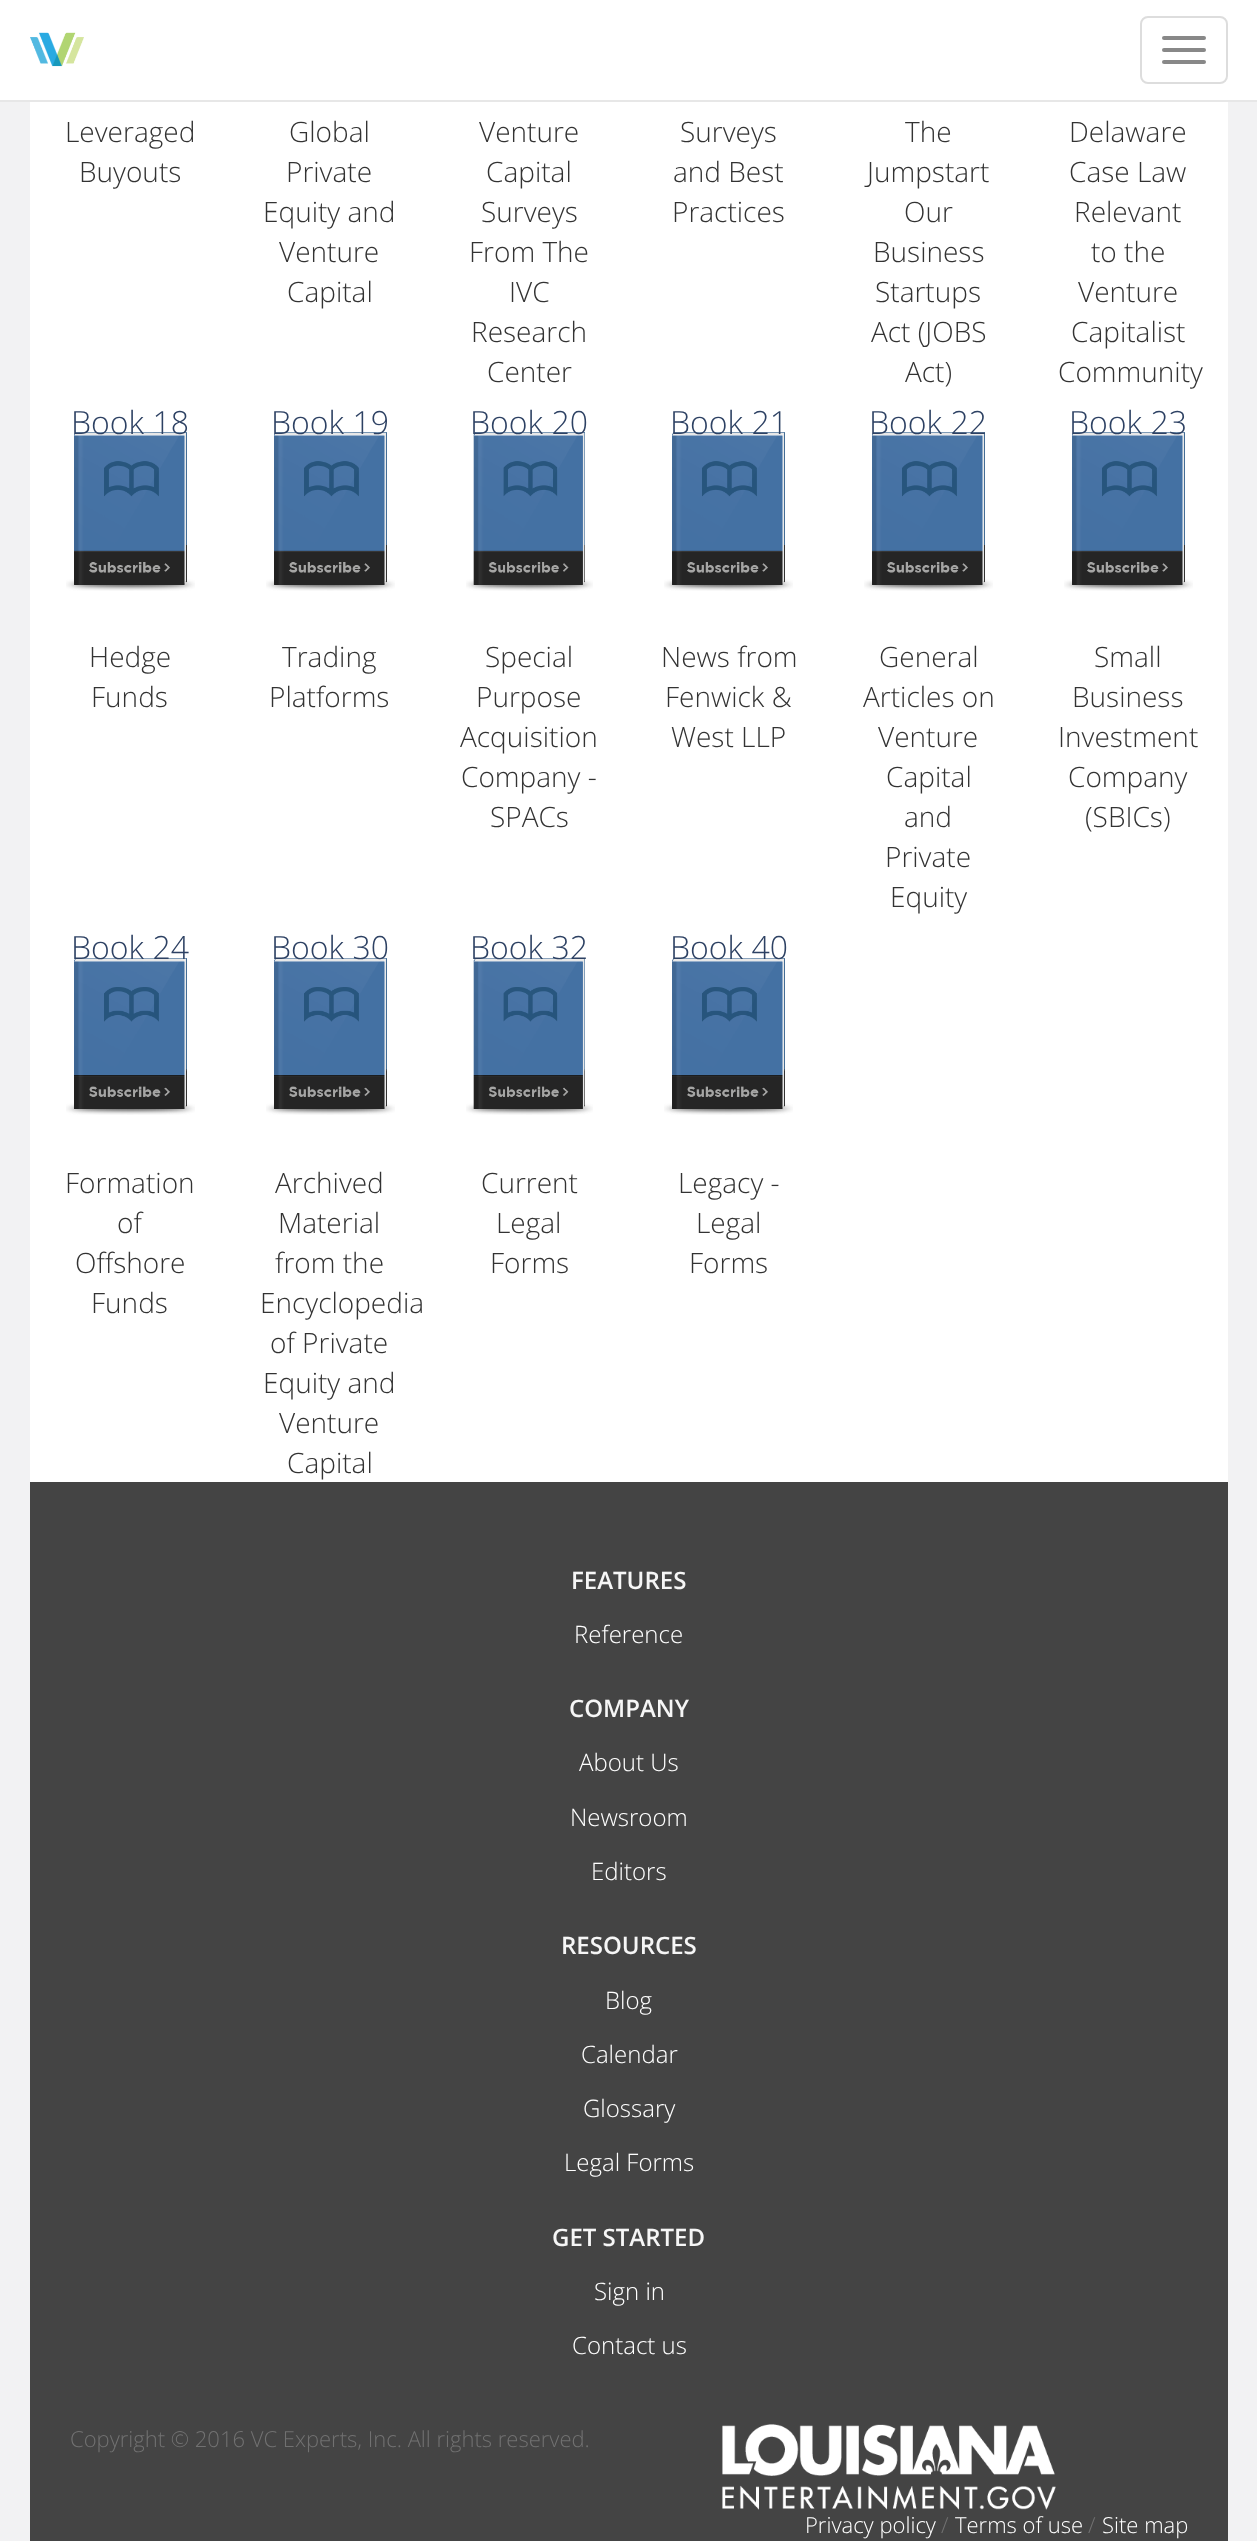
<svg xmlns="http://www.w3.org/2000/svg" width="1257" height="2541">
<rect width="100%" height="100%" fill="#f2f2f3"/>
<rect width="1257" height="100" fill="#fff"/>
<rect y="100" width="1257" height="2" fill="#e7e7e7"/>
<image x="30" y="32" width="54" height="35" href="media/1.png"/>
<rect x="1141" y="17" width="86" height="66" rx="7" fill="none" stroke="#ddd" stroke-width="2"/>
<rect x="1162" y="36" width="44" height="4" rx="2" fill="#888"/>
<rect x="1162" y="48" width="44" height="4" rx="2" fill="#888"/>
<rect x="1162" y="60" width="44" height="4" rx="2" fill="#888"/>
<rect x="30" y="102" width="1198" height="1380" fill="#fff"/>
<text x="65" y="142" style="font-family:Open Sans;font-size:28px;font-weight:300;fill:#333">Leveraged</text>
<text x="79" y="182" style="font-family:Open Sans;font-size:28px;font-weight:300;fill:#333">Buyouts</text>
<text x="289" y="142" style="font-family:Open Sans;font-size:28px;font-weight:300;fill:#333">Global</text>
<text x="286" y="182" style="font-family:Open Sans;font-size:28px;font-weight:300;fill:#333">Private</text>
<text x="263" y="222" style="font-family:Open Sans;font-size:28px;font-weight:300;fill:#333">Equity and</text>
<text x="279" y="262" style="font-family:Open Sans;font-size:28px;font-weight:300;fill:#333">Venture</text>
<text x="287" y="302" style="font-family:Open Sans;font-size:28px;font-weight:300;fill:#333">Capital</text>
<text x="479" y="142" style="font-family:Open Sans;font-size:28px;font-weight:300;fill:#333">Venture</text>
<text x="486" y="182" style="font-family:Open Sans;font-size:28px;font-weight:300;fill:#333">Capital</text>
<text x="481" y="222" style="font-family:Open Sans;font-size:28px;font-weight:300;fill:#333">Surveys</text>
<text x="469" y="262" style="font-family:Open Sans;font-size:28px;font-weight:300;fill:#333">From The</text>
<text x="509" y="302" style="font-family:Open Sans;font-size:28px;font-weight:300;fill:#333">IVC</text>
<text x="471" y="342" style="font-family:Open Sans;font-size:28px;font-weight:300;fill:#333">Research</text>
<text x="487" y="382" style="font-family:Open Sans;font-size:28px;font-weight:300;fill:#333">Center</text>
<text x="680" y="142" style="font-family:Open Sans;font-size:28px;font-weight:300;fill:#333">Surveys</text>
<text x="673" y="182" style="font-family:Open Sans;font-size:28px;font-weight:300;fill:#333">and Best</text>
<text x="672" y="222" style="font-family:Open Sans;font-size:28px;font-weight:300;fill:#333">Practices</text>
<text x="905" y="142" style="font-family:Open Sans;font-size:28px;font-weight:300;fill:#333">The</text>
<text x="867" y="182" style="font-family:Open Sans;font-size:28px;font-weight:300;fill:#333">Jumpstart</text>
<text x="904" y="222" style="font-family:Open Sans;font-size:28px;font-weight:300;fill:#333">Our</text>
<text x="873" y="262" style="font-family:Open Sans;font-size:28px;font-weight:300;fill:#333">Business</text>
<text x="875" y="302" style="font-family:Open Sans;font-size:28px;font-weight:300;fill:#333">Startups</text>
<text x="871" y="342" style="font-family:Open Sans;font-size:28px;font-weight:300;fill:#333">Act (JOBS</text>
<text x="905" y="382" style="font-family:Open Sans;font-size:28px;font-weight:300;fill:#333">Act)</text>
<text x="1069" y="142" style="font-family:Open Sans;font-size:28px;font-weight:300;fill:#333">Delaware</text>
<text x="1069" y="182" style="font-family:Open Sans;font-size:28px;font-weight:300;fill:#333">Case Law</text>
<text x="1074" y="222" style="font-family:Open Sans;font-size:28px;font-weight:300;fill:#333">Relevant</text>
<text x="1091" y="262" style="font-family:Open Sans;font-size:28px;font-weight:300;fill:#333">to the</text>
<text x="1078" y="302" style="font-family:Open Sans;font-size:28px;font-weight:300;fill:#333">Venture</text>
<text x="1071" y="342" style="font-family:Open Sans;font-size:28px;font-weight:300;fill:#333">Capitalist</text>
<text x="1058" y="382" style="font-family:Open Sans;font-size:28px;font-weight:300;fill:#333">Community</text>
<image x="66" y="432" width="129" height="159" href="media/2.png"/>
<text x="71" y="434" style="font-family:Open Sans;font-size:32px;font-weight:300;fill:#2d4163">Book 18</text>
<text x="89" y="667" style="font-family:Open Sans;font-size:28px;font-weight:300;fill:#333">Hedge</text>
<text x="91" y="707" style="font-family:Open Sans;font-size:28px;font-weight:300;fill:#333">Funds</text>
<image x="266" y="432" width="129" height="159" href="media/2.png"/>
<text x="271" y="434" style="font-family:Open Sans;font-size:32px;font-weight:300;fill:#2d4163">Book 19</text>
<text x="282" y="667" style="font-family:Open Sans;font-size:28px;font-weight:300;fill:#333">Trading</text>
<text x="269" y="707" style="font-family:Open Sans;font-size:28px;font-weight:300;fill:#333">Platforms</text>
<image x="466" y="432" width="127" height="159" href="media/3.png"/>
<text x="470" y="434" style="font-family:Open Sans;font-size:32px;font-weight:300;fill:#2d4163">Book 20</text>
<text x="485" y="667" style="font-family:Open Sans;font-size:28px;font-weight:300;fill:#333">Special</text>
<text x="476" y="707" style="font-family:Open Sans;font-size:28px;font-weight:300;fill:#333">Purpose</text>
<text x="460" y="747" style="font-family:Open Sans;font-size:28px;font-weight:300;fill:#333">Acquisition</text>
<text x="461" y="787" style="font-family:Open Sans;font-size:28px;font-weight:300;fill:#333">Company -</text>
<text x="490" y="827" style="font-family:Open Sans;font-size:28px;font-weight:300;fill:#333">SPACs</text>
<image x="664" y="432" width="129" height="159" href="media/2.png"/>
<text x="670" y="434" style="font-family:Open Sans;font-size:32px;font-weight:300;fill:#2d4163">Book 21</text>
<text x="661" y="667" style="font-family:Open Sans;font-size:28px;font-weight:300;fill:#333">News from</text>
<text x="665" y="707" style="font-family:Open Sans;font-size:28px;font-weight:300;fill:#333">Fenwick &amp;</text>
<text x="671" y="747" style="font-family:Open Sans;font-size:28px;font-weight:300;fill:#333">West LLP</text>
<image x="864" y="432" width="129" height="159" href="media/4.png"/>
<text x="869" y="434" style="font-family:Open Sans;font-size:32px;font-weight:300;fill:#2d4163">Book 22</text>
<text x="879" y="667" style="font-family:Open Sans;font-size:28px;font-weight:300;fill:#333">General</text>
<text x="863" y="707" style="font-family:Open Sans;font-size:28px;font-weight:300;fill:#333">Articles on</text>
<text x="878" y="747" style="font-family:Open Sans;font-size:28px;font-weight:300;fill:#333">Venture</text>
<text x="886" y="787" style="font-family:Open Sans;font-size:28px;font-weight:300;fill:#333">Capital</text>
<text x="904" y="827" style="font-family:Open Sans;font-size:28px;font-weight:300;fill:#333">and</text>
<text x="885" y="867" style="font-family:Open Sans;font-size:28px;font-weight:300;fill:#333">Private</text>
<text x="890" y="907" style="font-family:Open Sans;font-size:28px;font-weight:300;fill:#333">Equity</text>
<image x="1064" y="432" width="129" height="159" href="media/2.png"/>
<text x="1069" y="434" style="font-family:Open Sans;font-size:32px;font-weight:300;fill:#2d4163">Book 23</text>
<text x="1094" y="667" style="font-family:Open Sans;font-size:28px;font-weight:300;fill:#333">Small</text>
<text x="1072" y="707" style="font-family:Open Sans;font-size:28px;font-weight:300;fill:#333">Business</text>
<text x="1058" y="747" style="font-family:Open Sans;font-size:28px;font-weight:300;fill:#333">Investment</text>
<text x="1068" y="787" style="font-family:Open Sans;font-size:28px;font-weight:300;fill:#333">Company</text>
<text x="1085" y="827" style="font-family:Open Sans;font-size:28px;font-weight:300;fill:#333">(SBICs)</text>
<image x="66" y="958" width="129" height="157" href="media/5.png"/>
<text x="71" y="959" style="font-family:Open Sans;font-size:32px;font-weight:300;fill:#2d4163">Book 24</text>
<text x="65" y="1193" style="font-family:Open Sans;font-size:28px;font-weight:300;fill:#333">Formation</text>
<text x="117" y="1233" style="font-family:Open Sans;font-size:28px;font-weight:300;fill:#333">of</text>
<text x="75" y="1273" style="font-family:Open Sans;font-size:28px;font-weight:300;fill:#333">Offshore</text>
<text x="91" y="1313" style="font-family:Open Sans;font-size:28px;font-weight:300;fill:#333">Funds</text>
<image x="266" y="958" width="129" height="157" href="media/5.png"/>
<text x="271" y="959" style="font-family:Open Sans;font-size:32px;font-weight:300;fill:#2d4163">Book 30</text>
<text x="275" y="1193" style="font-family:Open Sans;font-size:28px;font-weight:300;fill:#333">Archived</text>
<text x="278" y="1233" style="font-family:Open Sans;font-size:28px;font-weight:300;fill:#333">Material</text>
<text x="275" y="1273" style="font-family:Open Sans;font-size:28px;font-weight:300;fill:#333">from the</text>
<text x="260" y="1313" style="font-family:Open Sans;font-size:28px;font-weight:300;fill:#333">Encyclopedia</text>
<text x="270" y="1353" style="font-family:Open Sans;font-size:28px;font-weight:300;fill:#333">of Private</text>
<text x="263" y="1393" style="font-family:Open Sans;font-size:28px;font-weight:300;fill:#333">Equity and</text>
<text x="279" y="1433" style="font-family:Open Sans;font-size:28px;font-weight:300;fill:#333">Venture</text>
<text x="287" y="1473" style="font-family:Open Sans;font-size:28px;font-weight:300;fill:#333">Capital</text>
<image x="466" y="958" width="127" height="157" href="media/6.png"/>
<text x="470" y="959" style="font-family:Open Sans;font-size:32px;font-weight:300;fill:#2d4163">Book 32</text>
<text x="481" y="1193" style="font-family:Open Sans;font-size:28px;font-weight:300;fill:#333">Current</text>
<text x="496" y="1233" style="font-family:Open Sans;font-size:28px;font-weight:300;fill:#333">Legal</text>
<text x="490" y="1273" style="font-family:Open Sans;font-size:28px;font-weight:300;fill:#333">Forms</text>
<image x="664" y="958" width="129" height="157" href="media/5.png"/>
<text x="670" y="959" style="font-family:Open Sans;font-size:32px;font-weight:300;fill:#2d4163">Book 40</text>
<text x="678" y="1193" style="font-family:Open Sans;font-size:28px;font-weight:300;fill:#333">Legacy -</text>
<text x="696" y="1233" style="font-family:Open Sans;font-size:28px;font-weight:300;fill:#333">Legal</text>
<text x="689" y="1273" style="font-family:Open Sans;font-size:28px;font-weight:300;fill:#333">Forms</text>
<rect x="30" y="1482" width="1198" height="1059" fill="#444"/>
<text x="571" y="1589" style="font-family:Open Sans;font-size:24px;font-weight:600;fill:#f6f6f6">FEATURES</text>
<text x="574" y="1643" style="font-family:Open Sans;font-size:24px;font-weight:300;fill:#fff">Reference</text>
<text x="569" y="1717" style="font-family:Open Sans;font-size:24px;font-weight:600;fill:#f6f6f6">COMPANY</text>
<text x="579" y="1771" style="font-family:Open Sans;font-size:24px;font-weight:300;fill:#fff">About Us</text>
<text x="570" y="1826" style="font-family:Open Sans;font-size:24px;font-weight:300;fill:#fff">Newsroom</text>
<text x="591" y="1880" style="font-family:Open Sans;font-size:24px;font-weight:300;fill:#fff">Editors</text>
<text x="561" y="1954" style="font-family:Open Sans;font-size:24px;font-weight:600;fill:#f6f6f6">RESOURCES</text>
<text x="605" y="2009" style="font-family:Open Sans;font-size:24px;font-weight:300;fill:#fff">Blog</text>
<text x="581" y="2063" style="font-family:Open Sans;font-size:24px;font-weight:300;fill:#fff">Calendar</text>
<text x="583" y="2117" style="font-family:Open Sans;font-size:24px;font-weight:300;fill:#fff">Glossary</text>
<text x="564" y="2171" style="font-family:Open Sans;font-size:24px;font-weight:300;fill:#fff">Legal Forms</text>
<text x="552" y="2246" style="font-family:Open Sans;font-size:24px;font-weight:600;fill:#f6f6f6">GET STARTED</text>
<text x="594" y="2300" style="font-family:Open Sans;font-size:24px;font-weight:300;fill:#fff">Sign in</text>
<text x="572" y="2354" style="font-family:Open Sans;font-size:24px;font-weight:300;fill:#fff">Contact us</text>
<text x="70" y="2447" style="font-family:Open Sans;font-size:22px;font-weight:300;fill:#717171">Copyright © 2016 VC Experts, Inc. All rights reserved.</text>
<image x="722" y="2424" width="334" height="86" href="media/7.png"/>
<text x="805" y="2533" style="font-family:Open Sans;font-size:22px;font-weight:300;fill:#fff">Privacy policy</text>
<text x="941" y="2533" style="font-family:Open Sans;font-size:22px;font-weight:300;fill:#717171">/</text>
<text x="955" y="2533" style="font-family:Open Sans;font-size:22px;font-weight:300;fill:#fff">Terms of use</text>
<text x="1088" y="2533" style="font-family:Open Sans;font-size:22px;font-weight:300;fill:#717171">/</text>
<text x="1102" y="2533" style="font-family:Open Sans;font-size:22px;font-weight:300;fill:#fff">Site map</text>
</svg>
